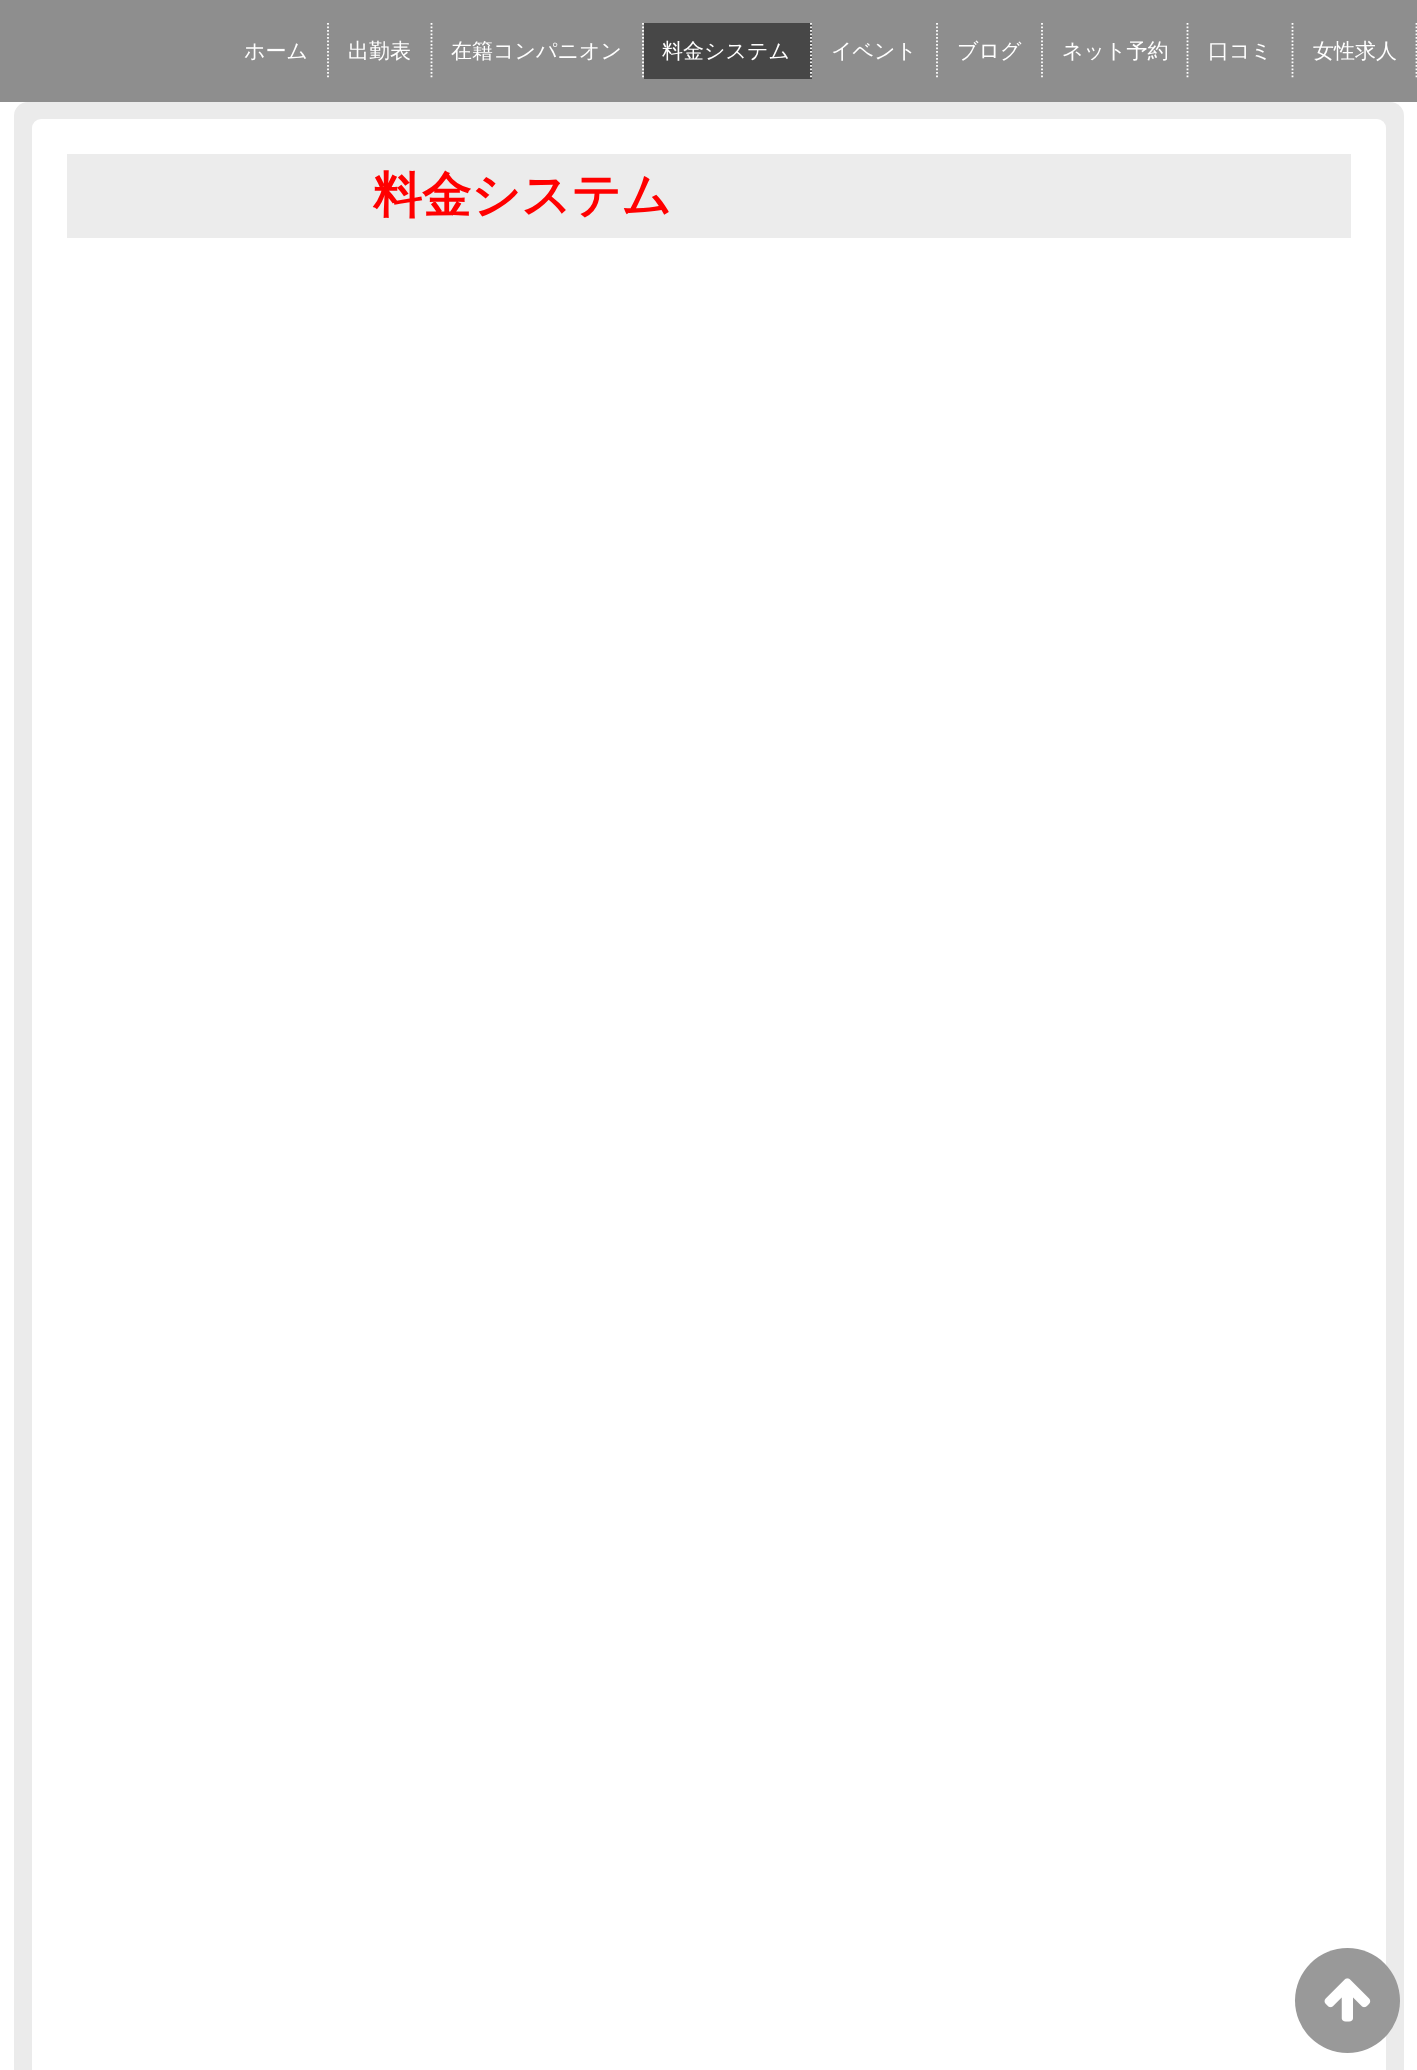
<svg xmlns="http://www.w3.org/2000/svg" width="1417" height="2070">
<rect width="100%" height="100%" fill="#fff"/>
<rect width="1417" height="102" fill="#8e8e8e"/>
<path d="M328 23v56" fill="none" stroke="#fff" stroke-width="1.8" stroke-dasharray="1.75 1.75"/>
<text x="244" y="58" style="font-family:WenQuanYi Zen Hei;font-size:21px;font-weight:500;fill:#fff">ホーム</text>
<path d="M431.5 23v56" fill="none" stroke="#fff" stroke-width="1.8" stroke-dasharray="1.75 1.75"/>
<text x="348" y="58" style="font-family:WenQuanYi Zen Hei;font-size:21px;font-weight:500;fill:#fff">出勤表</text>
<path d="M643 23v56" fill="none" stroke="#fff" stroke-width="1.8" stroke-dasharray="1.75 1.75"/>
<text x="451" y="58" style="font-family:WenQuanYi Zen Hei;font-size:21px;font-weight:500;fill:#fff">在籍コンパニオン</text>
<rect x="644" y="23" width="168" height="56" fill="#474747"/>
<path d="M811 23v56" fill="none" stroke="#fff" stroke-width="1.8" stroke-dasharray="1.75 1.75"/>
<text x="662" y="58" style="font-family:WenQuanYi Zen Hei;font-size:21px;font-weight:500;fill:#fff">料金システム</text>
<path d="M937 23v56" fill="none" stroke="#fff" stroke-width="1.8" stroke-dasharray="1.75 1.75"/>
<text x="831" y="58" style="font-family:WenQuanYi Zen Hei;font-size:21px;font-weight:500;fill:#fff">イベント</text>
<path d="M1042 23v56" fill="none" stroke="#fff" stroke-width="1.8" stroke-dasharray="1.75 1.75"/>
<text x="957" y="58" style="font-family:WenQuanYi Zen Hei;font-size:21px;font-weight:500;fill:#fff">ブログ</text>
<path d="M1187.5 23v56" fill="none" stroke="#fff" stroke-width="1.8" stroke-dasharray="1.75 1.75"/>
<text x="1062" y="58" style="font-family:WenQuanYi Zen Hei;font-size:21px;font-weight:500;fill:#fff">ネット予約</text>
<path d="M1292.5 23v56" fill="none" stroke="#fff" stroke-width="1.8" stroke-dasharray="1.75 1.75"/>
<text x="1208" y="58" style="font-family:WenQuanYi Zen Hei;font-size:21px;font-weight:500;fill:#fff">口コミ</text>
<path d="M1416.5 23v56" fill="none" stroke="#fff" stroke-width="1.8" stroke-dasharray="1.75 1.75"/>
<text x="1313" y="58" style="font-family:WenQuanYi Zen Hei;font-size:21px;font-weight:500;fill:#fff">女性求人</text>
<rect x="14" y="102" width="1390" height="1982" rx="14" fill="#ebebeb"/>
<rect x="32" y="119" width="1354" height="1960" rx="9" fill="#fff"/>
<rect x="67" y="154" width="1284" height="84" fill="#ececec"/>
<text x="373" y="212" style="font-family:WenQuanYi Zen Hei;font-size:49px;font-weight:bold;fill:#f00">料金システム</text>
<circle cx="1347.5" cy="2000.5" r="52.5" fill="#999"/>
<image x="1324" y="1978" width="47" height="44" href="media/1.png"/>
</svg>
